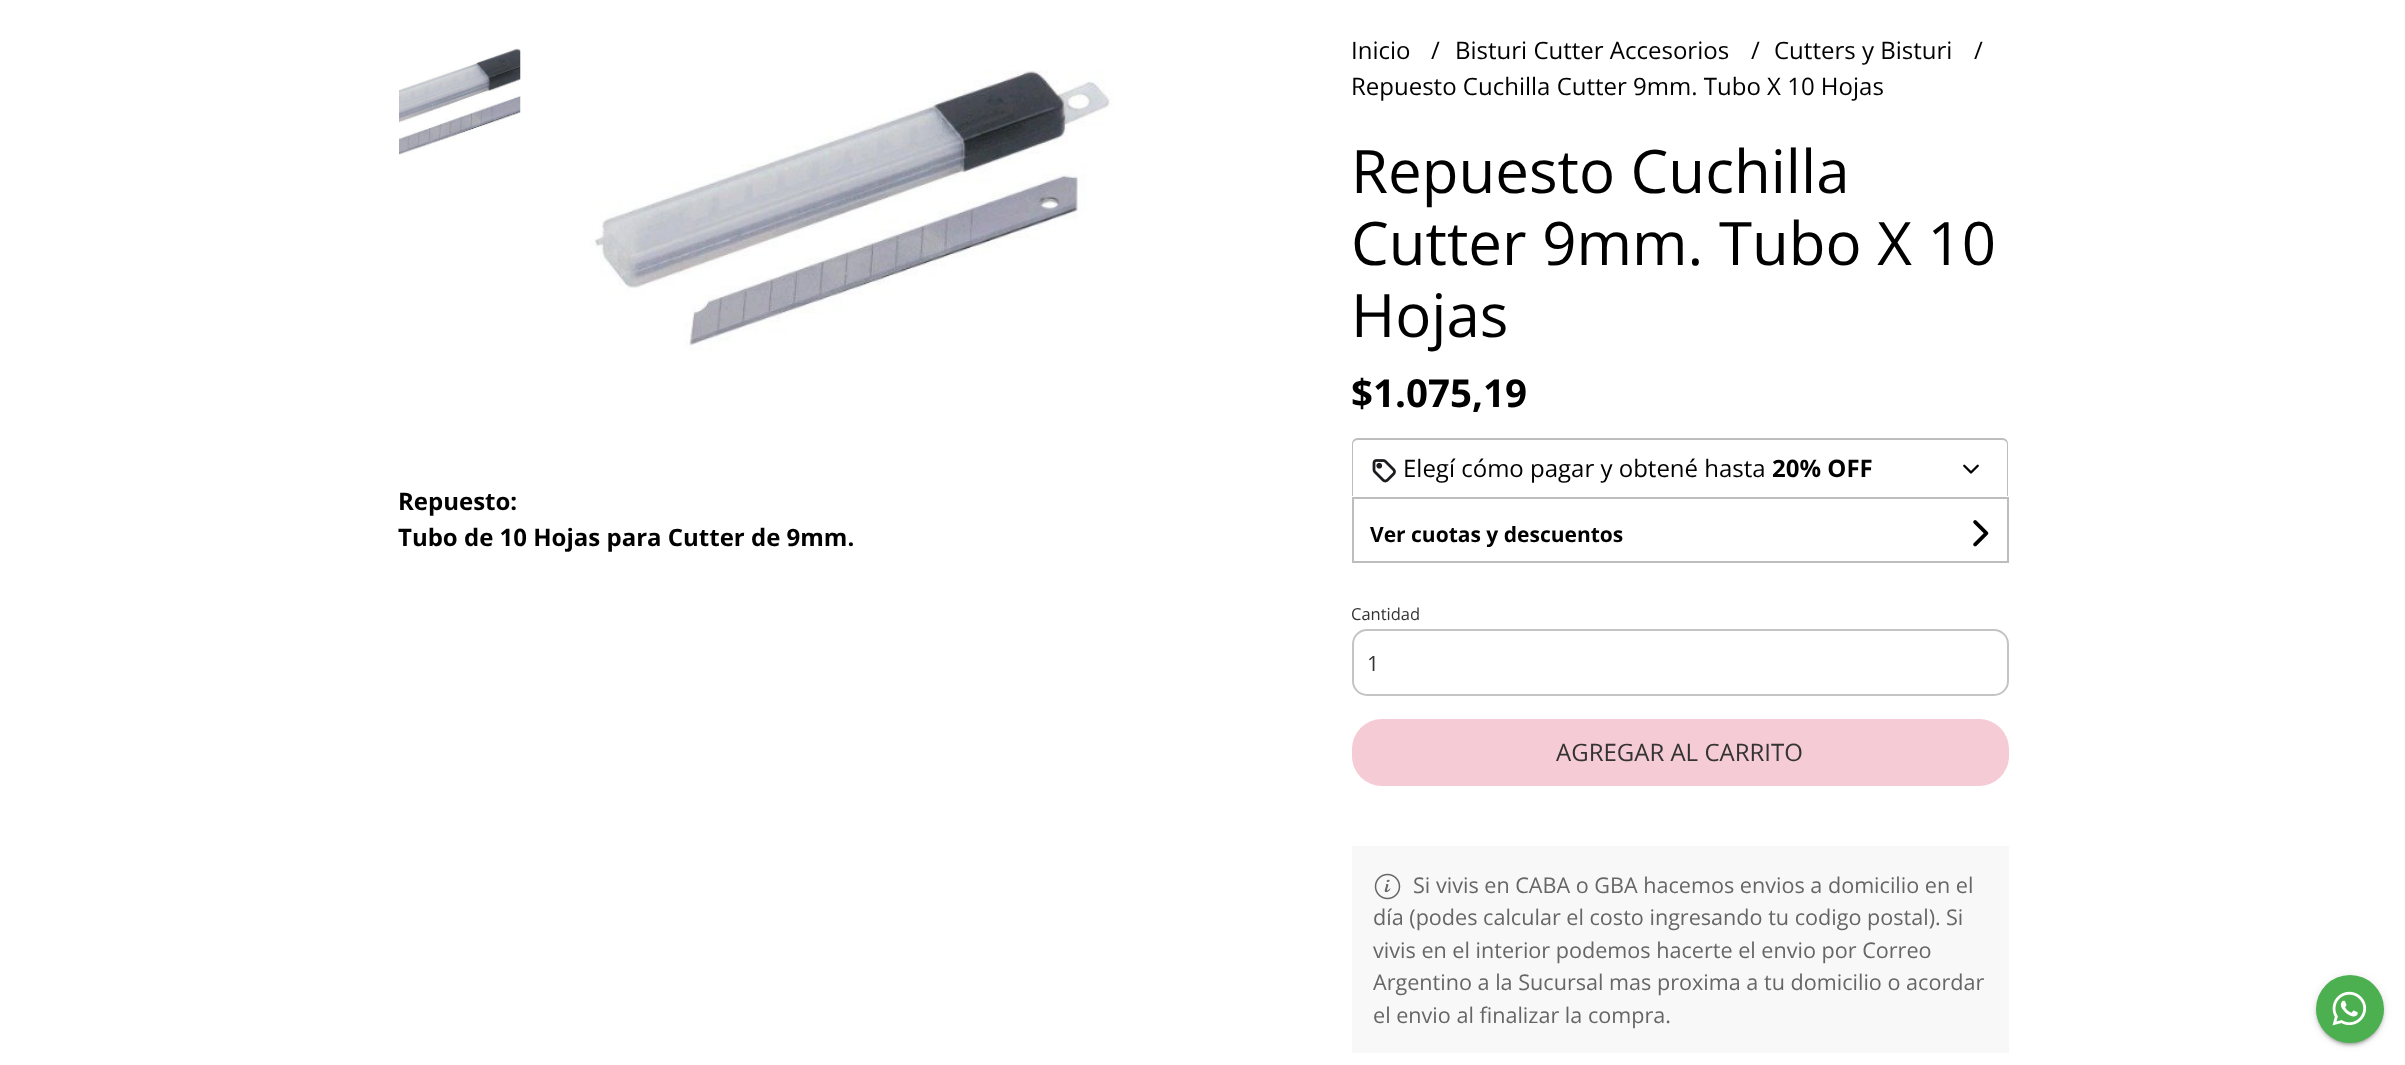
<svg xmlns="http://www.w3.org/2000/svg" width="2405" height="1065">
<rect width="100%" height="100%" fill="#fff"/>
<image x="399" y="48" width="122" height="107" href="media/1.png"/>
<image x="590" y="70" width="524" height="281" href="media/2.png"/>
<text x="398" y="510" style="font-family:Open Sans;font-size:24px;font-weight:bold;fill:#000">Repuesto:</text>
<text x="398" y="546" style="font-family:Open Sans;font-size:24px;font-weight:bold;fill:#000">Tubo de 10 Hojas para Cutter de 9mm.</text>
<text x="1351" y="59" style="font-family:Open Sans;font-size:24px;fill:#000">Inicio</text>
<text x="1431" y="59" style="font-family:Open Sans;font-size:24px;fill:#000">/</text>
<text x="1455" y="59" style="font-family:Open Sans;font-size:24px;fill:#000">Bisturi Cutter Accesorios</text>
<text x="1751" y="59" style="font-family:Open Sans;font-size:24px;fill:#000">/</text>
<text x="1774" y="59" style="font-family:Open Sans;font-size:24px;fill:#000">Cutters y Bisturi</text>
<text x="1974" y="59" style="font-family:Open Sans;font-size:24px;fill:#000">/</text>
<text x="1351" y="95" style="font-family:Open Sans;font-size:24px;fill:#000">Repuesto Cuchilla Cutter 9mm. Tubo X 10 Hojas</text>
<text x="1351" y="193" style="font-family:Open Sans;font-size:60px;fill:#000">Repuesto Cuchilla</text>
<text x="1351" y="265" style="font-family:Open Sans;font-size:60px;fill:#000">Cutter 9mm. Tubo X 10</text>
<text x="1351" y="337" style="font-family:Open Sans;font-size:60px;fill:#000">Hojas</text>
<text x="1351" y="407" style="font-family:Open Sans;font-size:38.5px;font-weight:bold;fill:#000">$1.075,19</text>
<path d="M1358 438h644c4 0 6 3 6 6v52h-656v-52c0-3 2-6 6-6zm0 2h644c3 0 5 2 5 4v52h-654v-52c0-2 2-4 5-4z" fill="#bdbdbd" fill-rule="evenodd"/>
<image x="1372" y="459" width="24" height="24" href="media/3.png"/>
<text x="1403" y="477" style="font-family:Open Sans;font-size:24px;fill:#000">Elegí cómo pagar y obtené hasta</text>
<text x="1772" y="477" style="font-family:Open Sans;font-size:24px;font-weight:bold;fill:#000">20% OFF</text>
<image x="1963" y="464" width="16" height="10" href="media/4.png"/>
<rect x="1353" y="498" width="655" height="64" fill="none" stroke="#bdbdbd" stroke-width="2"/>
<text x="1370" y="542" style="font-family:Open Sans;font-size:21px;font-weight:bold;fill:#000">Ver cuotas y descuentos</text>
<image x="1973" y="520" width="16" height="27" href="media/5.png"/>
<text x="1351" y="620" style="font-family:Open Sans;font-size:16.5px;fill:#333">Cantidad</text>
<rect x="1353" y="630" width="655" height="65" rx="14" fill="none" stroke="#c4c4c4" stroke-width="2"/>
<text x="1367" y="671" style="font-family:Open Sans;font-size:21px;fill:#333">1</text>
<rect x="1352" y="719" width="657" height="67" rx="30" fill="#f5cbd5"/>
<text x="1556" y="761" style="font-family:Open Sans;font-size:24px;fill:#333">AGREGAR AL CARRITO</text>
<rect x="1352" y="846" width="657" height="207" fill="#f8f8f8"/>
<image x="1374" y="873" width="27" height="27" href="media/6.png"/>
<text x="1413" y="893" style="font-family:Open Sans;font-size:21.6px;fill:#666">Si vivis en CABA o GBA hacemos envios a domicilio en el</text>
<text x="1373" y="925" style="font-family:Open Sans;font-size:21.6px;fill:#666">día (podes calcular el costo ingresando tu codigo postal).</text>
<text x="1946" y="925" style="font-family:Open Sans;font-size:21.6px;fill:#666">Si</text>
<text x="1373" y="958" style="font-family:Open Sans;font-size:21.6px;fill:#666">vivis en el interior podemos hacerte el envio por Correo</text>
<text x="1373" y="990" style="font-family:Open Sans;font-size:21.6px;fill:#666">Argentino a la Sucursal mas proxima a tu domicilio o acordar</text>
<text x="1373" y="1023" style="font-family:Open Sans;font-size:21.6px;fill:#666">el envio al finalizar la compra.</text>
<rect x="2319" y="983" width="62" height="61" rx="30.5" fill="#00000033" filter="blur(1px)"/>
<rect x="2316" y="977" width="68" height="67" rx="33.5" fill="#0000001f" filter="blur(4px)"/>
<rect x="2316" y="978" width="68" height="68" rx="34" fill="#00000024" filter="blur(1.5px)"/>
<circle cx="2350" cy="1009" r="34" fill="#4caf50"/>
<image x="2332" y="991" width="35" height="35" href="media/7.png"/>
</svg>
